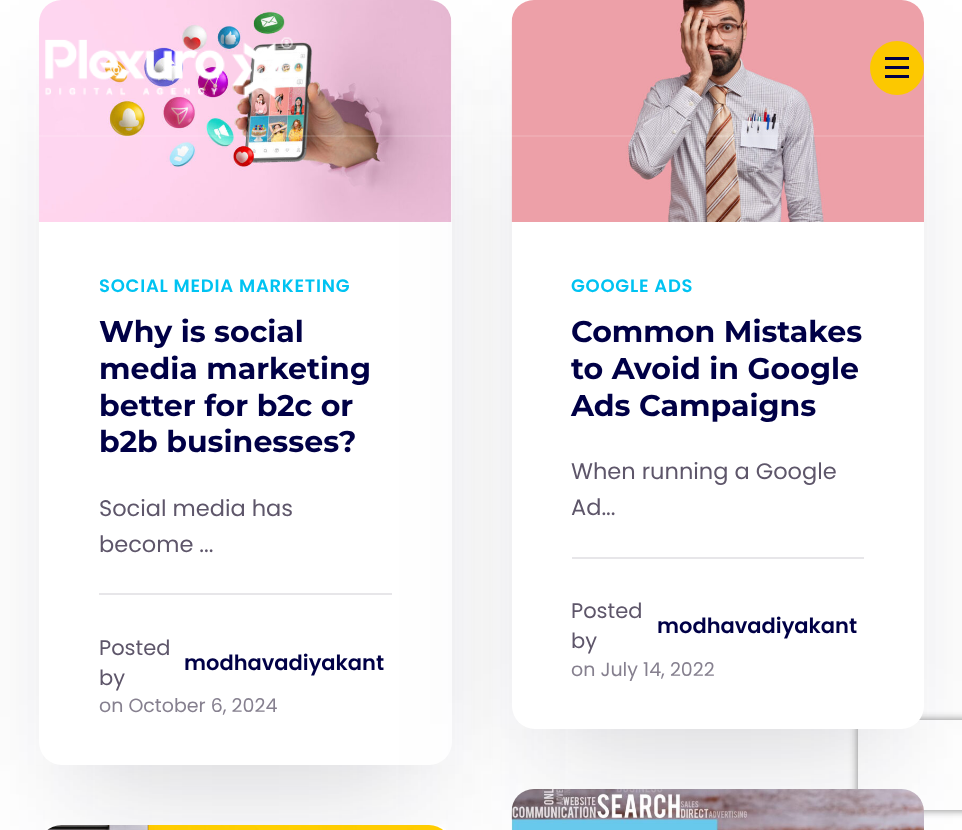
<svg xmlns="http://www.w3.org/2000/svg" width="962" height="830">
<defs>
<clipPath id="clip1"><path d="M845 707h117v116h-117zm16 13h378c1.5 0 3 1.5 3 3v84c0 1.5-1.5 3-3 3h-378c-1.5 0-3-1.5-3-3v-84c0-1.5 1.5-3 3-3z" clip-rule="evenodd"/></clipPath>
</defs>
<rect width="100%" height="100%" fill="#fff"/>
<rect x="69" y="105" width="353" height="705" fill="#262c371a" filter="blur(75px)"/>
<rect x="84" y="90" width="323" height="675" fill="#262c371a" filter="blur(45px)"/>
<rect x="39" width="413" height="765" rx="23" fill="#fff"/>
<image x="39" y="0" width="413" height="222" href="media/2.png"/>
<rect x="99" y="593" width="293" height="2" fill="#e7e6e9"/>
<rect x="542" y="105" width="352" height="669" fill="#262c371a" filter="blur(75px)"/>
<rect x="557" y="90" width="322" height="639" fill="#262c371a" filter="blur(45px)"/>
<g clip-path="url(#clip1)">
<rect x="858" y="720" width="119" height="90" rx="3" fill="#808080" filter="blur(4px)"/>
</g>
<rect x="512" width="412" height="729" rx="23" fill="#fff"/>
<image x="511" y="0" width="413" height="222" href="media/3.png"/>
<rect x="39" y="135" width="885" height="2" fill="#ffffff1f"/>
<image x="45" y="37" width="248" height="61" href="media/1.png"/>
<circle cx="897" cy="68" r="27" fill="#fcc800"/>
<rect x="885" y="57" width="24" height="3" fill="#000046"/>
<rect x="885" y="66" width="24" height="3" fill="#000046"/>
<rect x="885" y="75" width="24" height="3" fill="#000046"/>
<text x="99" y="292" style="font-family:Poppins;font-size:18px;font-weight:600;letter-spacing:0.75px;fill:#00c3f2">SOCIAL MEDIA MARKETING</text>
<text x="99" y="342" style="font-family:Montserrat;font-size:30px;font-weight:100;fill:#000046">Why is social</text>
<text x="99" y="379" style="font-family:Montserrat;font-size:30px;font-weight:100;fill:#000046">media marketing</text>
<text x="99" y="416" style="font-family:Montserrat;font-size:30px;font-weight:100;fill:#000046">better for b2c or</text>
<text x="99" y="452" style="font-family:Montserrat;font-size:30px;font-weight:100;fill:#000046">b2b businesses?</text>
<text x="99" y="516" style="font-family:Poppins;font-size:22.5px;fill:#5e566a">Social media has</text>
<text x="99" y="552" style="font-family:Poppins;font-size:22.5px;fill:#5e566a">become ...</text>
<text x="99" y="655" style="font-family:Poppins;font-size:21px;fill:#5e566a">Posted</text>
<text x="99" y="685" style="font-family:Poppins;font-size:21px;fill:#5e566a">by</text>
<text x="184" y="670" style="font-family:Poppins;font-size:21px;font-weight:600;fill:#000046">modhavadiyakant</text>
<text x="99" y="712" style="font-family:Poppins;font-size:19px;fill:#86808f">on October 6, 2024</text>
<text x="571" y="292" style="font-family:Poppins;font-size:18px;font-weight:600;letter-spacing:0.75px;fill:#00c3f2">GOOGLE ADS</text>
<text x="571" y="342" style="font-family:Montserrat;font-size:30px;font-weight:100;fill:#000046">Common Mistakes</text>
<text x="571" y="379" style="font-family:Montserrat;font-size:30px;font-weight:100;fill:#000046">to Avoid in Google</text>
<text x="571" y="416" style="font-family:Montserrat;font-size:30px;font-weight:100;fill:#000046">Ads Campaigns</text>
<text x="571" y="479" style="font-family:Poppins;font-size:22.5px;fill:#5e566a">When running a Google</text>
<text x="571" y="515" style="font-family:Poppins;font-size:22.5px;fill:#5e566a">Ad...</text>
<rect x="572" y="557" width="292" height="2" fill="#e7e6e9"/>
<text x="571" y="618" style="font-family:Poppins;font-size:21px;fill:#5e566a">Posted</text>
<text x="571" y="648" style="font-family:Poppins;font-size:21px;fill:#5e566a">by</text>
<text x="657" y="633" style="font-family:Poppins;font-size:21px;font-weight:600;fill:#000046">modhavadiyakant</text>
<text x="571" y="676" style="font-family:Poppins;font-size:19px;fill:#86808f">on July 14, 2022</text>
<image x="511" y="789" width="413" height="41" href="media/4.png"/>
<rect x="39" y="825" width="413" height="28" rx="23" fill="#fff"/>
<image x="47" y="825" width="396" height="5" href="media/5.png"/>
</svg>
